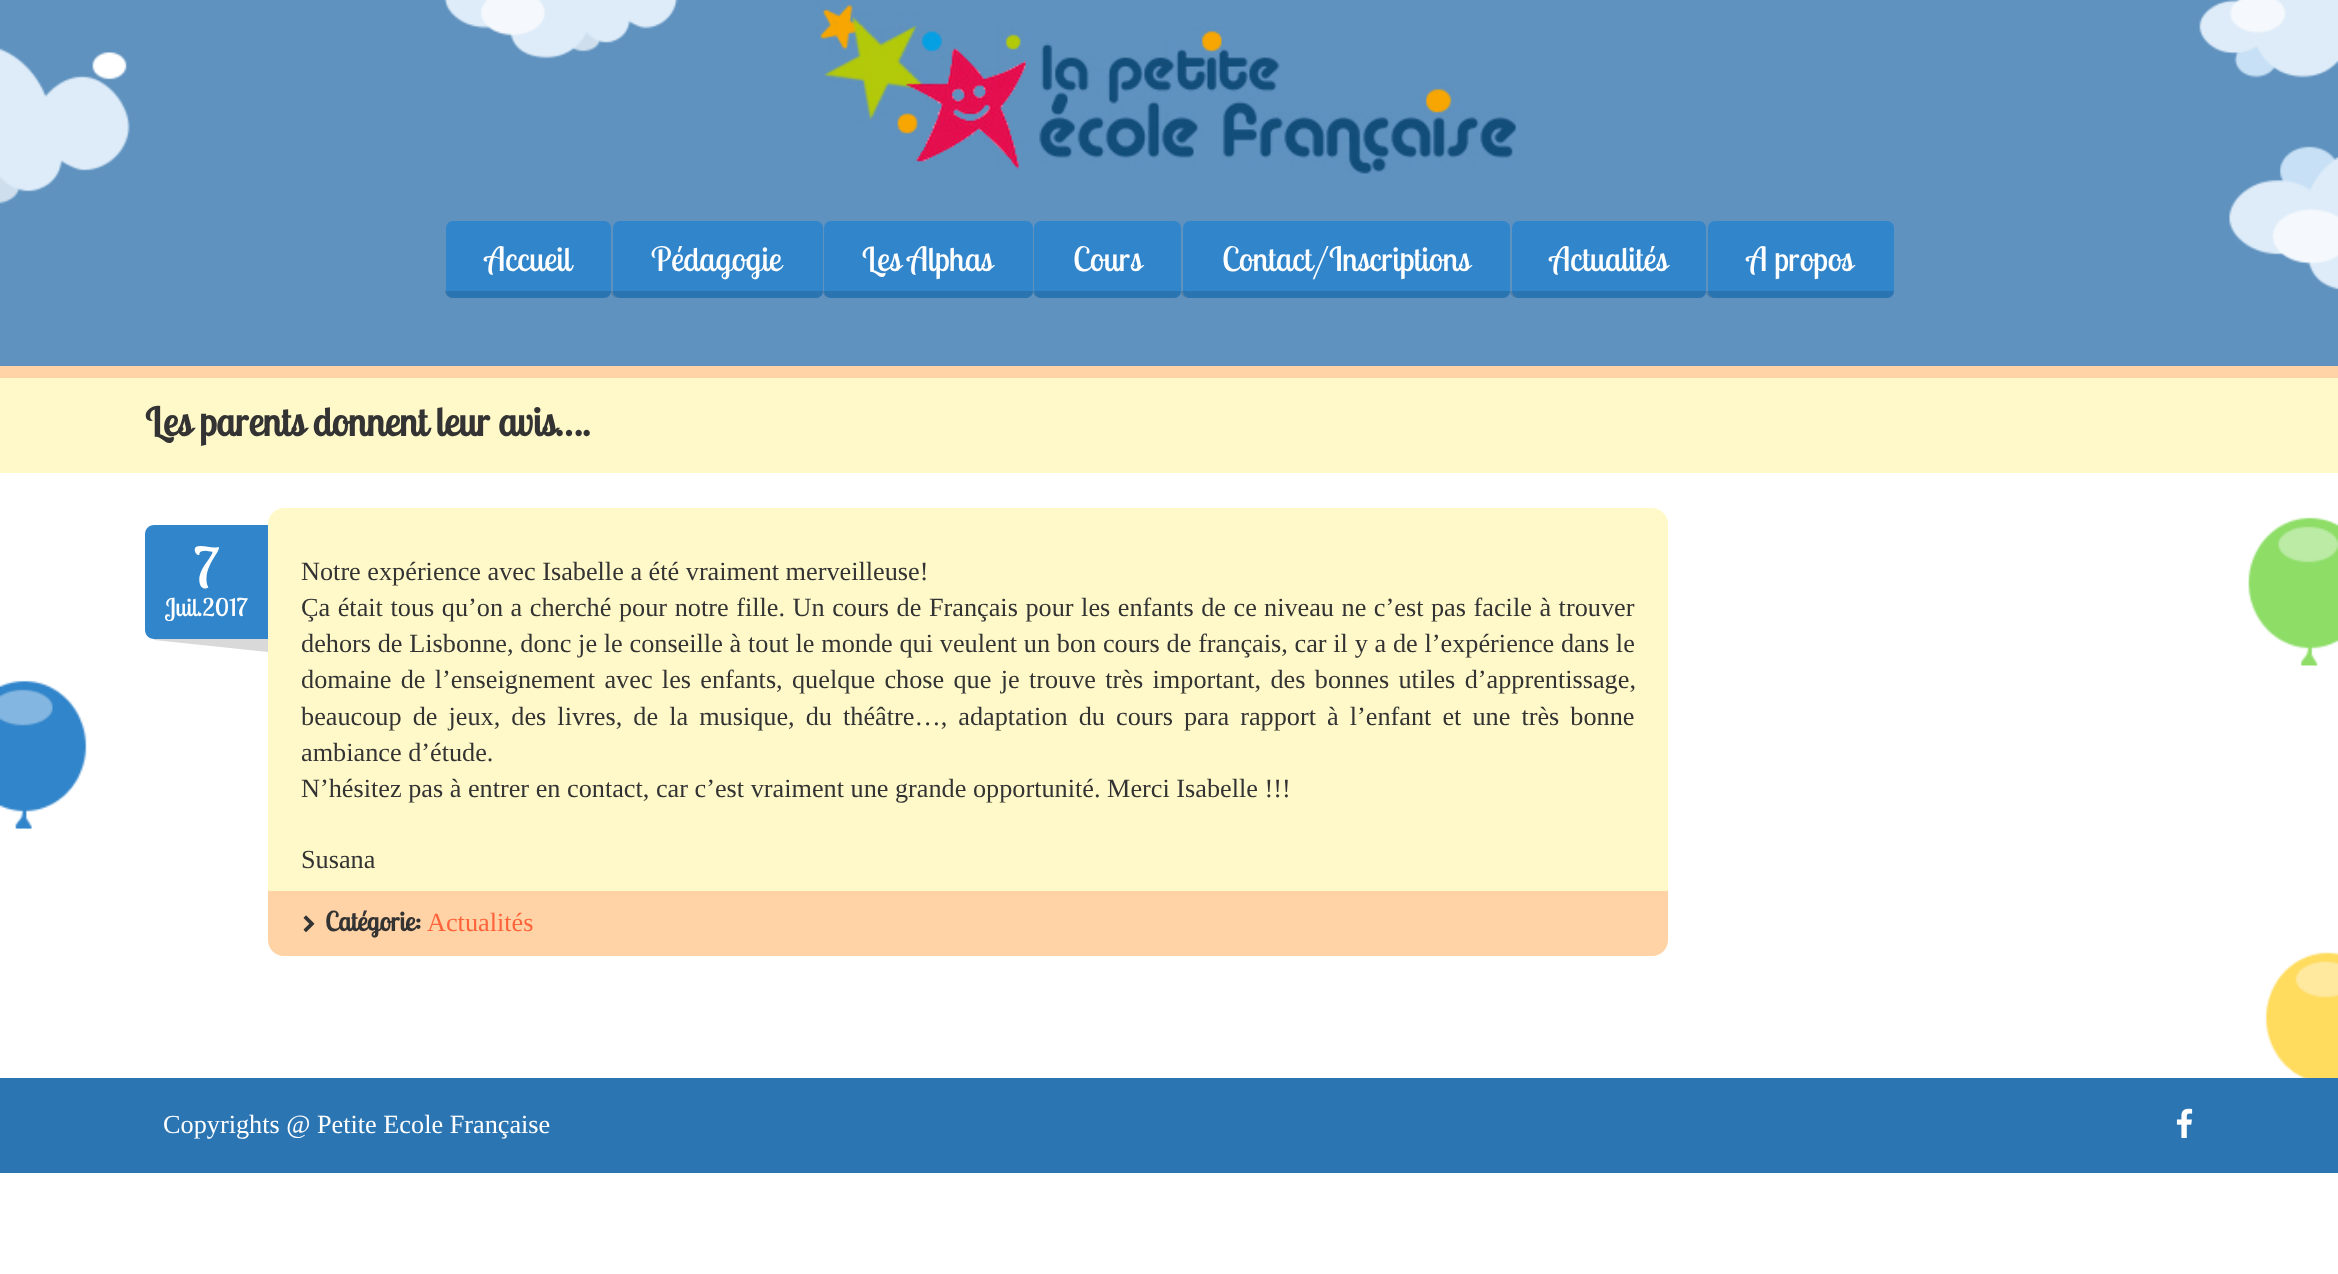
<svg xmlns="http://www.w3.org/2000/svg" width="2338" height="1274">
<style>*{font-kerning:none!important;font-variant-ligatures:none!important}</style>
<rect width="100%" height="100%" fill="#fff"/>
<rect width="2338" height="366" fill="#5f92bf"/>
<image x="0" y="0" width="2338" height="290" href="media/1.png"/>
<image x="815" y="0" width="702" height="174" href="media/2.png"/>
<rect x="446" y="221" width="165" height="77" rx="7" fill="#3185cb"/>
<text x="485" y="271" style="font-family:Lobster Two;font-size:33.25px;fill:#fff">Accueil</text>
<path d="M445 291h166c0 4-3 7-7 7h-152c-4 0-7-3-7-7z" fill="#0000001f"/>
<rect x="613" y="221" width="210" height="77" rx="7" fill="#3185cb"/>
<text x="651" y="271" style="font-family:Lobster Two;font-size:33.25px;fill:#fff">Pédagogie</text>
<path d="M611 291h212c0 4-3 7-7 7h-198c-4 0-7-3-7-7z" fill="#0000001f"/>
<rect x="824" y="221" width="209" height="77" rx="7" fill="#3185cb"/>
<text x="862" y="271" style="font-family:Lobster Two;font-size:33.25px;fill:#fff">Les Alphas</text>
<path d="M823 291h210c0 4-3 7-7 7h-196c-4 0-7-3-7-7z" fill="#0000001f"/>
<rect x="1034" y="221" width="147" height="77" rx="7" fill="#3185cb"/>
<text x="1073" y="271" style="font-family:Lobster Two;font-size:33.25px;fill:#fff">Cours</text>
<path d="M1033 291h148c0 4-3 7-7 7h-134c-4 0-7-3-7-7z" fill="#0000001f"/>
<rect x="1183" y="221" width="327" height="77" rx="7" fill="#3185cb"/>
<text x="1222" y="271" style="font-family:Lobster Two;font-size:33.25px;fill:#fff">Contact/Inscriptions</text>
<path d="M1181 291h329c0 4-3 7-7 7h-315c-4 0-7-3-7-7z" fill="#0000001f"/>
<rect x="1512" y="221" width="194" height="77" rx="7" fill="#3185cb"/>
<text x="1550" y="271" style="font-family:Lobster Two;font-size:33.25px;fill:#fff">Actualités</text>
<path d="M1510 291h196c0 4-3 7-7 7h-182c-4 0-7-3-7-7z" fill="#0000001f"/>
<rect x="1708" y="221" width="186" height="77" rx="7" fill="#3185cb"/>
<text x="1747" y="271" style="font-family:Lobster Two;font-size:33.25px;fill:#fff">A propos</text>
<path d="M1706 291h188c0 4-3 7-7 7h-174c-4 0-7-3-7-7z" fill="#0000001f"/>
<rect y="378" width="2338" height="95" fill="#fff9c9"/>
<rect y="366" width="2338" height="12" fill="#ffd3a5"/>
<text x="145" y="436" style="font-family:Lobster Two;font-size:39.4px;font-weight:bold;fill:#333">Les parents donnent leur avis….</text>
<image x="0" y="680" width="87" height="149" href="media/3.png"/>
<path d="M154 605l114 12v35l-114-12z" fill="#d9d9d9"/>
<path d="M154 525h114v114h-114c-5 0-9-4-9-9v-96c0-5 4-9 9-9z" fill="#3185cb"/>
<text x="194" y="588" style="font-family:Lobster Two;font-size:56px;fill:#fff">7</text>
<text x="165" y="616" style="font-family:Lobster Two;font-size:24.5px;fill:#fff">Juil.2017</text>
<rect x="268" y="508" width="1400" height="416" rx="16" fill="#fff9c9"/>
<text x="301" y="580" style="font-family:Liberation Serif;font-size:26.25px;fill:#333">Notre expérience avec Isabelle a été vraiment merveilleuse!</text>
<text x="301" y="616" word-spacing="1" style="font-family:Liberation Serif;font-size:26.25px;fill:#333">Ça était tous qu’on a cherché pour notre fille. Un cours de Français pour les enfants de ce</text>
<text x="1264" y="616" word-spacing="1" style="font-family:Liberation Serif;font-size:26.25px;fill:#333">niveau ne c’est pas facile à trouver</text>
<text x="301" y="652" word-spacing="0.2" style="font-family:Liberation Serif;font-size:26.25px;fill:#333">dehors de Lisbonne, donc je le conseille à tout le monde qui veulent un bon cours de français, car il y a de l’expérience dans le</text>
<text x="301" y="688" word-spacing="2.75" style="font-family:Liberation Serif;font-size:26.25px;fill:#333">domaine de l’enseignement avec les enfants, quelque chose que je trouve très important, des bonnes utiles d’apprentissage,</text>
<text x="301" y="725" word-spacing="4.5" style="font-family:Liberation Serif;font-size:26.25px;fill:#333">beaucoup de jeux, des livres, de la musique, du théâtre…, adaptation du cours para rapport à l’enfant et une très bonne</text>
<text x="301" y="761" style="font-family:Liberation Serif;font-size:26.25px;fill:#333">ambiance d’étude.</text>
<text x="301" y="797" style="font-family:Liberation Serif;font-size:26.25px;fill:#333">N’hésitez pas à entrer en contact, car c’est vraiment une grande opportunité. Merci Isabelle !!!</text>
<text x="301" y="868" style="font-family:Liberation Serif;font-size:26.25px;fill:#333">Susana</text>
<path d="M268 891h1400v49c0 9-7 16-16 16h-1368c-9 0-16-7-16-16z" fill="#ffd3a5"/>
<image x="303" y="915" width="12" height="17" href="media/4.png"/>
<text x="325" y="931" style="font-family:Lobster Two;font-size:26.25px;font-weight:bold;fill:#333">Catégorie:</text>
<text x="427" y="931" style="font-family:Liberation Serif;font-size:26.25px;fill:#ff633c">Actualités</text>
<image x="2248" y="517" width="90" height="561" href="media/5.png"/>
<rect y="1078" width="2338" height="95" fill="#2b75b3"/>
<text x="163" y="1133" style="font-family:Liberation Serif;font-size:26.25px;fill:#fff">Copyrights @ Petite Ecole Française</text>
<image x="2176" y="1108" width="17" height="30" href="media/6.png"/>
</svg>
